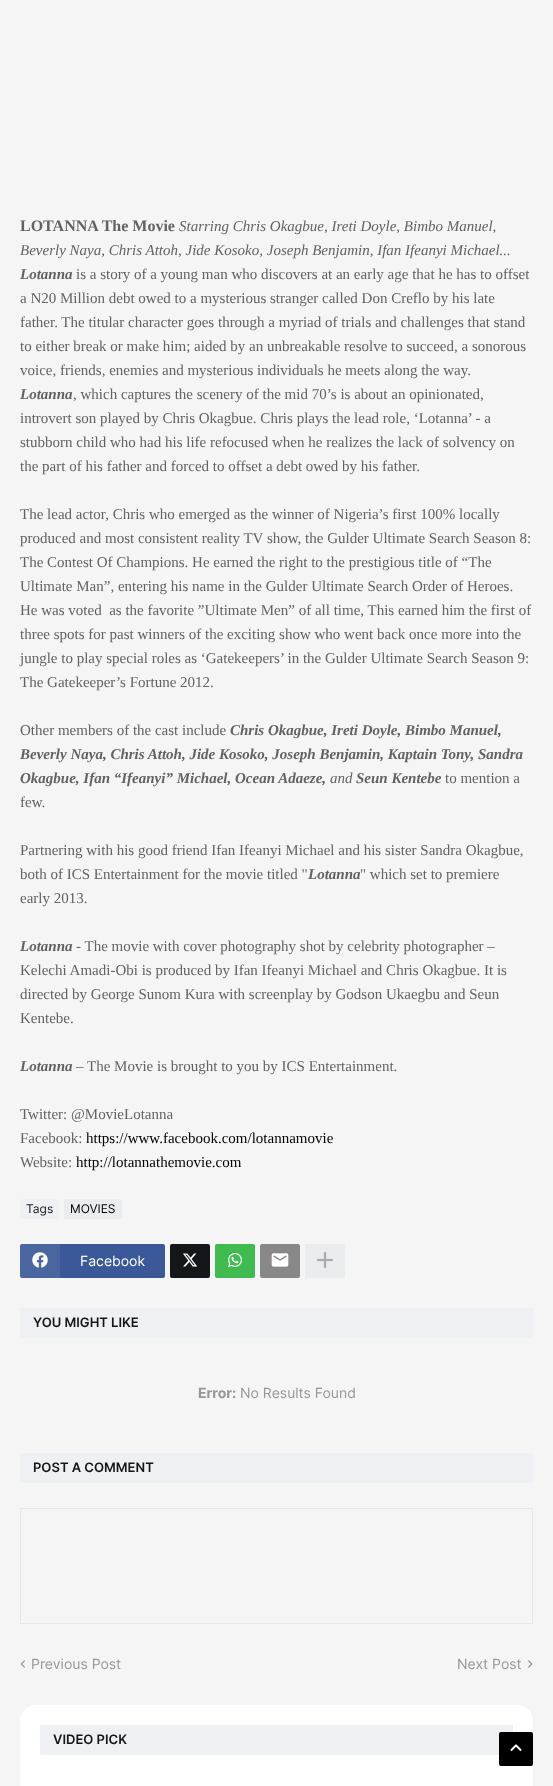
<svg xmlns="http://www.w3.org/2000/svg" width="553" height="1786">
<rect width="100%" height="100%" fill="#f5f5f5"/>
<text x="20" y="231" style="font-family:Liberation Serif;font-size:16px;font-weight:bold;fill:#626262">LOTANNA The Movie</text>
<text x="179" y="231" style="font-family:Liberation Serif;font-size:15px;font-style:italic;fill:#626262">Starring Chris Okagbue, Ireti Doyle, Bimbo Manuel,</text>
<text x="20" y="255" style="font-family:Liberation Serif;font-size:15px;font-style:italic;fill:#626262">Beverly Naya, Chris Attoh, Jide Kosoko, Joseph Benjamin, Ifan Ifeanyi Michael...</text>
<text x="20" y="279" style="font-family:Liberation Serif;font-size:15px;font-weight:bold;font-style:italic;fill:#626262">Lotanna</text>
<text x="76" y="279" style="font-family:Liberation Serif;font-size:15px;fill:#626262">is a story of a young man who discovers at an early age that he has to offset</text>
<text x="20" y="303" style="font-family:Liberation Serif;font-size:15px;fill:#626262">a N20 Million debt owed to a mysterious stranger called Don Creflo by his late</text>
<text x="20" y="327" style="font-family:Liberation Serif;font-size:15px;fill:#626262">father. The titular character goes through a myriad of trials and challenges that stand</text>
<text x="20" y="351" style="font-family:Liberation Serif;font-size:15px;fill:#626262">to either break or make him; aided by an unbreakable resolve to succeed, a sonorous</text>
<text x="20" y="375" style="font-family:Liberation Serif;font-size:15px;fill:#626262">voice, friends, enemies and mysterious individuals he meets along the way.</text>
<text x="20" y="399" style="font-family:Liberation Serif;font-size:15px;font-weight:bold;font-style:italic;fill:#626262">Lotanna</text>
<text x="73" y="399" style="font-family:Liberation Serif;font-size:15px;fill:#626262">, which captures the scenery of the mid 70’s is about an opinionated,</text>
<text x="20" y="423" style="font-family:Liberation Serif;font-size:15px;fill:#626262">introvert son played by Chris Okagbue. Chris plays the lead role, ‘Lotanna’ - a</text>
<text x="20" y="447" style="font-family:Liberation Serif;font-size:15px;fill:#626262">stubborn child who had his life refocused when he realizes the lack of solvency on</text>
<text x="20" y="471" style="font-family:Liberation Serif;font-size:15px;fill:#626262">the part of his father and forced to offset a debt owed by his father.</text>
<text x="20" y="519" style="font-family:Liberation Serif;font-size:15px;fill:#626262">The lead actor, Chris who emerged as the winner of Nigeria’s first 100% locally</text>
<text x="20" y="543" style="font-family:Liberation Serif;font-size:15px;fill:#626262">produced and most consistent reality TV show, the Gulder Ultimate Search Season 8:</text>
<text x="20" y="567" style="font-family:Liberation Serif;font-size:15px;fill:#626262">The Contest Of Champions. He earned the right to the prestigious title of “The</text>
<text x="20" y="591" style="font-family:Liberation Serif;font-size:15px;fill:#626262">Ultimate Man”, entering his name in the Gulder Ultimate Search Order of Heroes.</text>
<text x="20" y="615" style="font-family:Liberation Serif;font-size:15px;fill:#626262" xml:space="preserve">He was voted  as the favorite ”Ultimate Men” of all time, This earned him the first of</text>
<text x="20" y="639" style="font-family:Liberation Serif;font-size:15px;fill:#626262">three spots for past winners of the exciting show who went back once more into the</text>
<text x="20" y="663" style="font-family:Liberation Serif;font-size:15px;fill:#626262">jungle to play special roles as ‘Gatekeepers’ in the Gulder Ultimate Search Season 9:</text>
<text x="20" y="687" style="font-family:Liberation Serif;font-size:15px;fill:#626262">The Gatekeeper’s Fortune 2012.</text>
<text x="20" y="735" style="font-family:Liberation Serif;font-size:15px;fill:#626262">Other members of the cast include</text>
<text x="230" y="735" style="font-family:Liberation Serif;font-size:15px;font-weight:bold;font-style:italic;fill:#626262">Chris Okagbue, Ireti Doyle, Bimbo Manuel,</text>
<text x="20" y="759" style="font-family:Liberation Serif;font-size:15px;font-weight:bold;font-style:italic;fill:#626262">Beverly Naya, Chris Attoh, Jide Kosoko, Joseph Benjamin, Kaptain Tony, Sandra</text>
<text x="20" y="783" style="font-family:Liberation Serif;font-size:15px;font-weight:bold;font-style:italic;fill:#626262">Okagbue, Ifan “Ifeanyi” Michael, Ocean Adaeze,</text>
<text x="330" y="783" style="font-family:Liberation Serif;font-size:15px;font-style:italic;fill:#626262">and</text>
<text x="356" y="783" style="font-family:Liberation Serif;font-size:15px;font-weight:bold;font-style:italic;fill:#626262">Seun Kentebe</text>
<text x="445" y="783" style="font-family:Liberation Serif;font-size:15px;fill:#626262">to mention a</text>
<text x="20" y="807" style="font-family:Liberation Serif;font-size:15px;fill:#626262">few.</text>
<text x="20" y="855" style="font-family:Liberation Serif;font-size:15px;fill:#626262">Partnering with his good friend Ifan Ifeanyi Michael and his sister Sandra Okagbue,</text>
<text x="20" y="879" style="font-family:Liberation Serif;font-size:15px;fill:#626262">both of ICS Entertainment for the movie titled "</text>
<text x="308" y="879" style="font-family:Liberation Serif;font-size:15px;font-weight:bold;font-style:italic;fill:#626262">Lotanna</text>
<text x="360" y="879" style="font-family:Liberation Serif;font-size:15px;fill:#626262">" which set to premiere</text>
<text x="20" y="903" style="font-family:Liberation Serif;font-size:15px;fill:#626262">early 2013.</text>
<text x="20" y="951" style="font-family:Liberation Serif;font-size:15px;font-weight:bold;font-style:italic;fill:#626262">Lotanna</text>
<text x="76" y="951" style="font-family:Liberation Serif;font-size:15px;fill:#626262">- The movie with cover photography shot by celebrity photographer –</text>
<text x="20" y="975" style="font-family:Liberation Serif;font-size:15px;fill:#626262">Kelechi Amadi-Obi is produced by Ifan Ifeanyi Michael and Chris Okagbue. It is</text>
<text x="20" y="999" style="font-family:Liberation Serif;font-size:15px;fill:#626262">directed by George Sunom Kura with screenplay by Godson Ukaegbu and Seun</text>
<text x="20" y="1023" style="font-family:Liberation Serif;font-size:15px;fill:#626262">Kentebe.</text>
<text x="20" y="1071" style="font-family:Liberation Serif;font-size:15px;font-weight:bold;font-style:italic;fill:#626262">Lotanna</text>
<text x="76" y="1071" style="font-family:Liberation Serif;font-size:15px;fill:#626262">– The Movie is brought to you by ICS Entertainment.</text>
<text x="20" y="1119" style="font-family:Liberation Serif;font-size:15px;fill:#626262">Twitter: @MovieLotanna</text>
<text x="20" y="1143" style="font-family:Liberation Serif;font-size:15px;fill:#626262">Facebook:</text>
<text x="86" y="1143" style="font-family:Liberation Serif;font-size:15px;fill:#000">https://www.facebook.com/lotannamovie</text>
<text x="20" y="1167" style="font-family:Liberation Serif;font-size:15px;fill:#626262">Website:</text>
<text x="76" y="1167" style="font-family:Liberation Serif;font-size:15px;fill:#000">http://lotannathemovie.com</text>
<rect x="20" y="1199" width="39" height="20" rx="2" fill="#eff0f4"/>
<text x="26" y="1213" style="font-family:Inter;font-size:12px;fill:#161618">Tags</text>
<rect x="64" y="1199" width="58" height="20" rx="2" fill="#eaeced"/>
<text x="70" y="1213" style="font-family:Inter;font-size:12px;fill:#000">MOVIES</text>
<rect x="20" y="1244" width="145" height="34" rx="2" fill="#3b5999"/>
<rect x="20" y="1244" width="40" height="34" fill="#ffffff14"/>
<image x="32" y="1252" width="16" height="16" href="media/1.png"/>
<text x="80" y="1266" style="font-family:Inter;font-size:14px;fill:#fff">Facebook</text>
<rect x="170" y="1244" width="40" height="34" rx="2" fill="#14171a"/>
<image x="183" y="1253" width="15" height="14" href="media/2.png"/>
<rect x="215" y="1244" width="40" height="34" rx="2" fill="#3fbb50"/>
<image x="228" y="1253" width="14" height="14" href="media/3.png"/>
<rect x="260" y="1244" width="40" height="34" rx="2" fill="#888"/>
<image x="271" y="1253" width="18" height="14" href="media/4.png"/>
<rect x="305" y="1244" width="40" height="34" rx="2" fill="#eaeced"/>
<image x="317" y="1252" width="16" height="16" href="media/5.png"/>
<rect x="20" y="1308" width="513" height="30" fill="#eff0f4"/>
<text x="33" y="1327" style="font-family:Inter;font-size:13px;font-weight:600;fill:#161618">YOU MIGHT LIKE</text>
<text x="198" y="1398" style="font-family:Inter;font-size:14px;font-weight:bold;fill:#979797">Error:</text>
<text x="240" y="1398" style="font-family:Inter;font-size:14px;fill:#979797">No Results Found</text>
<rect x="20" y="1453" width="513" height="30" fill="#eff0f4"/>
<text x="33" y="1472" style="font-family:Inter;font-size:13px;font-weight:600;fill:#161618">POST A COMMENT</text>
<rect x="20.5" y="1508.5" width="512" height="115" fill="none" stroke="#e8e8e8"/>
<image x="20" y="1660" width="5" height="8" href="media/6.png"/>
<text x="31" y="1669" style="font-family:Inter;font-size:14px;fill:#979797">Previous Post</text>
<text x="457" y="1669" style="font-family:Inter;font-size:14px;fill:#979797">Next Post</text>
<image x="528" y="1660" width="5" height="8" href="media/7.png"/>
<rect x="20" y="1705" width="513" height="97" rx="16" fill="#fff"/>
<rect x="40" y="1725" width="473" height="30" fill="#eff0f4"/>
<text x="53" y="1744" style="font-family:Inter;font-size:13px;font-weight:600;fill:#161618">VIDEO PICK</text>
<rect x="499" y="1732" width="34" height="34" rx="2" fill="#000"/>
<image x="510" y="1744" width="12" height="7" href="media/8.png"/>
</svg>
